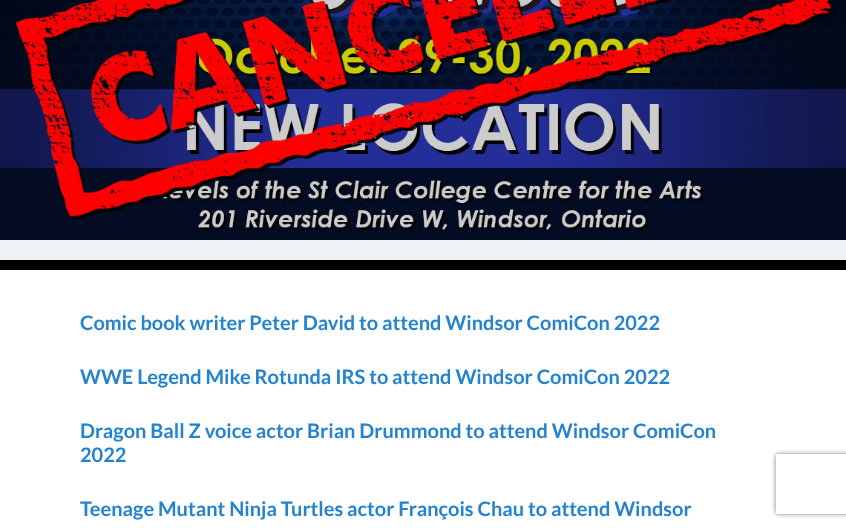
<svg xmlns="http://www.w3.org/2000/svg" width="846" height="528">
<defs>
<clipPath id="clip1"><path d="M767 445h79v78h-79zm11 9h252c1 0 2 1 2 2v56c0 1-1 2-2 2h-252c-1 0-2-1-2-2v-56c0-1 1-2 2-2z" clip-rule="evenodd"/></clipPath>
</defs>
<rect width="100%" height="100%" fill="#fff"/>
<rect y="240" width="846" height="20" fill="#edf3f4"/>
<rect y="260" width="846" height="10" fill="#000"/>
<image x="0" y="0" width="846" height="240" href="media/1.png"/>
<text x="80" y="330" style="font-family:Lato;font-size:20px;font-weight:bold;fill:#2483d0">Comic book writer Peter David to attend Windsor ComiCon 2022</text>
<text x="80" y="384" style="font-family:Lato;font-size:20px;font-weight:bold;fill:#2483d0">WWE Legend Mike Rotunda IRS to attend Windsor ComiCon 2022</text>
<text x="80" y="438" style="font-family:Lato;font-size:20px;font-weight:bold;fill:#2483d0">Dragon Ball Z voice actor Brian Drummond to attend Windsor ComiCon</text>
<text x="80" y="462" style="font-family:Lato;font-size:20px;font-weight:bold;fill:#2483d0">2022</text>
<text x="80" y="516" style="font-family:Lato;font-size:20px;font-weight:bold;fill:#2483d0">Teenage Mutant Ninja Turtles actor François Chau to attend Windsor</text>
<g clip-path="url(#clip1)">
<rect x="776" y="454" width="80" height="60" rx="2" fill="#808080" filter="blur(2.5px)"/>
</g>
</svg>
